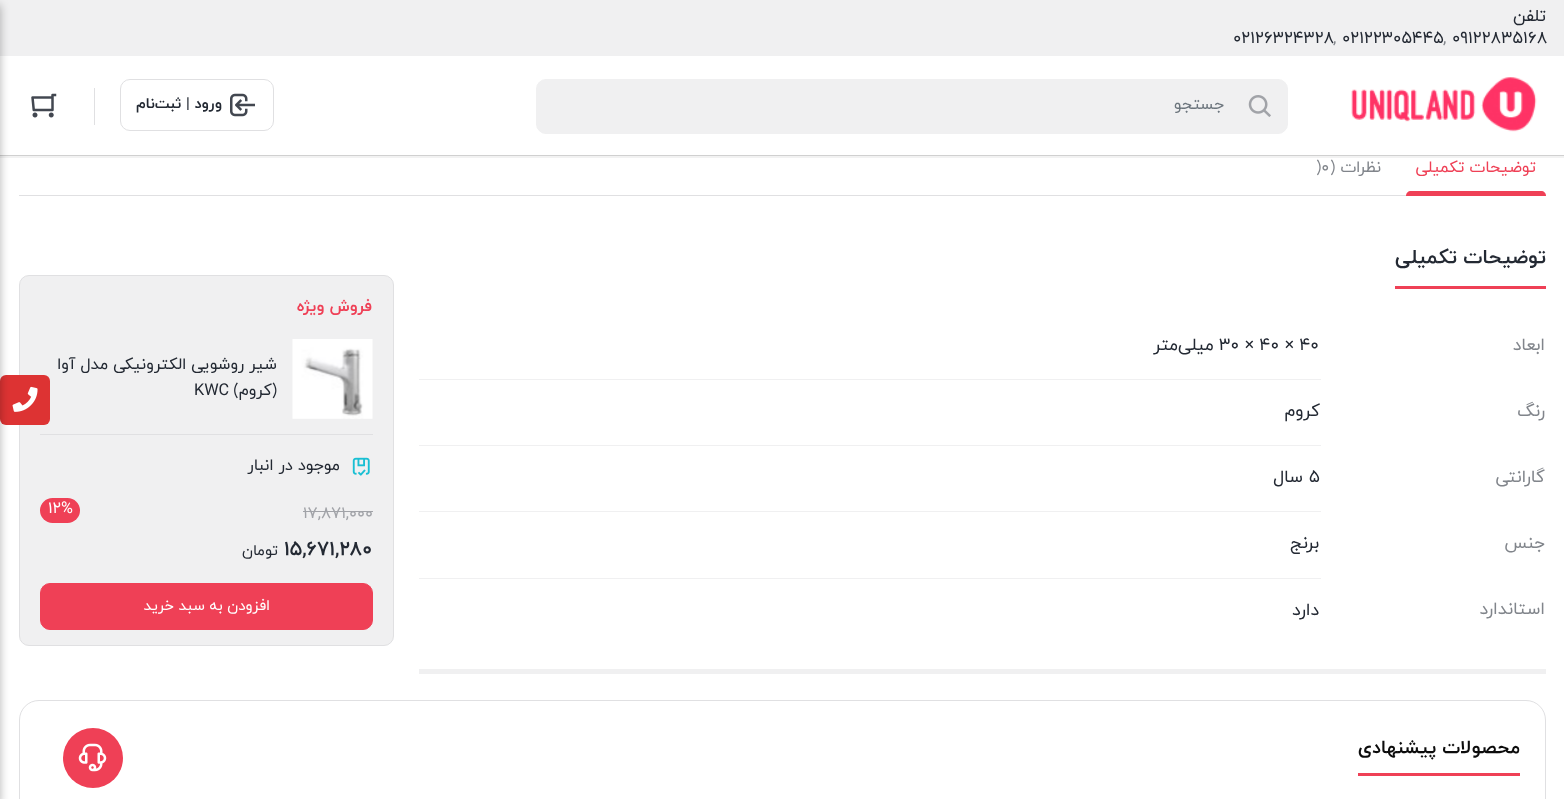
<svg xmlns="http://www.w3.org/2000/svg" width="1564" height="799">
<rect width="100%" height="100%" fill="#fff"/>
<rect width="1564" height="56" fill="#f0f0f1"/>
<text x="1546" y="21" style="font-family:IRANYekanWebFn;font-size:17px;direction:rtl;fill:#232933">تلفن</text>
<text x="1452" y="43" style="font-family:IRANYekanWebFn;font-size:17px;fill:#232933">09122835168</text>
<text x="1443" y="43" style="font-family:IRANYekanWebFn;font-size:17px;fill:#81858b">,</text>
<text x="1342" y="43" style="font-family:IRANYekanWebFn;font-size:17px;fill:#232933">02122305445</text>
<text x="1333" y="43" style="font-family:IRANYekanWebFn;font-size:17px;fill:#81858b">,</text>
<text x="1233" y="43" style="font-family:IRANYekanWebFn;font-size:17px;fill:#232933">02126324328</text>
<image x="1351" y="77" width="186" height="55" href="media/1.png"/>
<rect x="536.5" y="79.5" width="751" height="54" rx="9.5" fill="#f0f0f1" stroke="#f0f0f1"/>
<image x="1248" y="95" width="23" height="22" href="media/2.png"/>
<text x="1224" y="109" style="font-family:IRANYekanWebFn;font-size:16.25px;direction:rtl;fill:#6c757d">جستجو</text>
<rect x="120.5" y="79.5" width="153" height="51" rx="9.5" fill="none" stroke="#e0e0e2"/>
<image x="230" y="93" width="25" height="24" href="media/3.png"/>
<text x="222" y="108" style="font-family:IRANYekanWebFn;font-size:15px;font-weight:bold;direction:rtl;fill:#232933">ورود | ثبت‌نام</text>
<rect x="94" y="88" width="1" height="37" fill="#e0e0e2"/>
<image x="31" y="93" width="26" height="25" href="media/4.png"/>
<rect y="156" width="1564" height="2" fill="#f2f2f2"/>
<rect y="155" width="1564" height="1" fill="#d0d0d0"/>
<rect x="19.5" y="275.5" width="374" height="370" rx="9.5" fill="#f0f0f1" stroke="#e0e0e2"/>
<rect y="375" width="50" height="50" rx="6" fill="#d33"/>
<image x="12" y="386" width="26" height="26" href="media/7.png"/>
<rect x="-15" y="5" width="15" height="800" fill="#0000004d" filter="blur(5px)"/>
<rect x="19" y="195" width="1527" height="1" fill="#e0e0e2"/>
<text x="1536" y="172" style="font-family:IRANYekanWebFn;font-size:16.25px;direction:rtl;fill:#ef4056">توضیحات تکمیلی</text>
<path d="M1411 191h130c3 0 5 2 5 5h-140c0-3 2-5 5-5z" fill="#ef4056"/>
<text x="1381" y="172" style="font-family:IRANYekanWebFn;font-size:16.25px;direction:rtl;fill:#81858b">نظرات (</text>
<text x="1316" y="172" style="font-family:IRANYekanWebFn;font-size:16.25px;fill:#81858b">)0</text>
<rect x="419" y="669" width="1127" height="5" fill="#f0f0f1"/>
<rect x="1395" y="286" width="151" height="3" fill="#ef4056"/>
<text x="1546" y="263" style="font-family:IRANYekanWebFn;font-size:20px;font-weight:bold;direction:rtl;fill:#232933">توضیحات تکمیلی</text>
<text x="1545" y="350" style="font-family:IRANYekanWebFn;font-size:17.5px;direction:rtl;fill:#81858b">ابعاد</text>
<rect x="419" y="379" width="902" height="1" fill="#f0f0f1"/>
<text x="1219" y="350" style="font-family:IRANYekanWebFn;font-size:17.5px;fill:#232933">30 × 40 × 40</text>
<text x="1214" y="350" style="font-family:IRANYekanWebFn;font-size:17.5px;direction:rtl;fill:#232933">میلی‌متر</text>
<text x="1545" y="416" style="font-family:IRANYekanWebFn;font-size:17.5px;direction:rtl;fill:#81858b">رنگ</text>
<rect x="419" y="445" width="902" height="1" fill="#f0f0f1"/>
<text x="1320" y="416" style="font-family:IRANYekanWebFn;font-size:17.5px;direction:rtl;fill:#232933">کروم</text>
<text x="1545" y="482" style="font-family:IRANYekanWebFn;font-size:17.5px;direction:rtl;fill:#81858b">گارانتی</text>
<rect x="419" y="511" width="902" height="1" fill="#f0f0f1"/>
<text x="1309" y="482" style="font-family:IRANYekanWebFn;font-size:17.5px;fill:#232933">5</text>
<text x="1303" y="482" style="font-family:IRANYekanWebFn;font-size:17.5px;direction:rtl;fill:#232933">سال</text>
<text x="1545" y="548" style="font-family:IRANYekanWebFn;font-size:17.5px;direction:rtl;fill:#81858b">جنس</text>
<rect x="419" y="578" width="902" height="1" fill="#f0f0f1"/>
<text x="1319" y="548" style="font-family:IRANYekanWebFn;font-size:17.5px;direction:rtl;fill:#232933">برنج</text>
<text x="1545" y="614" style="font-family:IRANYekanWebFn;font-size:17.5px;direction:rtl;fill:#81858b">استاندارد</text>
<text x="1319" y="615" style="font-family:IRANYekanWebFn;font-size:17.5px;direction:rtl;fill:#232933">دارد</text>
<text x="372" y="311" style="font-family:IRANYekanWebFn;font-size:16.25px;font-weight:bold;direction:rtl;fill:#ef4056">فروش ویژه</text>
<rect x="40" y="434" width="333" height="1" fill="#e0e0e2"/>
<image x="292" y="339" width="81" height="80" href="media/5.png"/>
<text x="277" y="369" style="font-family:IRANYekanWebFn;font-size:16.25px;direction:rtl;fill:#232933">شیر روشویی الکترونیکی مدل آوا</text>
<text x="277" y="395" style="font-family:IRANYekanWebFn;font-size:16.25px;direction:rtl;fill:#232933">(کروم)</text>
<text x="194" y="395" style="font-family:IRANYekanWebFn;font-size:16.25px;fill:#232933">KWC</text>
<image x="352" y="457" width="18" height="19" href="media/6.png"/>
<text x="340" y="470" style="font-family:IRANYekanWebFn;font-size:16.25px;direction:rtl;fill:#232933">موجود در انبار</text>
<text x="303" y="518" style="font-family:IRANYekanWebFn;font-size:16.25px;fill:#a1a3a8">17,871,000</text>
<rect x="303" y="511" width="70" height="1" fill="#a1a3a8"/>
<rect x="40" y="498" width="40" height="25" rx="12.5" fill="#ef4056"/>
<text x="48" y="513" style="font-family:IRANYekanWebFn;font-size:16.25px;fill:#fff">12%</text>
<text x="284" y="555" style="font-family:IRANYekanWebFn;font-size:20px;font-weight:bold;fill:#232933">15,671,280</text>
<text x="278" y="555" style="font-family:IRANYekanWebFn;font-size:15px;direction:rtl;fill:#232933">تومان</text>
<rect x="40.5" y="583.5" width="332" height="46" rx="9.5" fill="#ef4056" stroke="#ef4056"/>
<text x="270" y="610" style="font-family:IRANYekanWebFn;font-size:15px;direction:rtl;fill:#fff">افزودن به سبد خرید</text>
<rect x="19.5" y="700.5" width="1526" height="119" rx="19.5" fill="none" stroke="#e0e0e2"/>
<rect x="1358" y="773" width="162" height="3" fill="#ef4056"/>
<text x="1520" y="753" style="font-family:IRANYekanWebFn;font-size:18.75px;font-weight:bold;direction:rtl;fill:#0c0c0c">محصولات پیشنهادی</text>
<circle cx="93" cy="758" r="30" fill="#ef4056"/>
<image x="78" y="743" width="29" height="29" href="media/8.png"/>
</svg>
